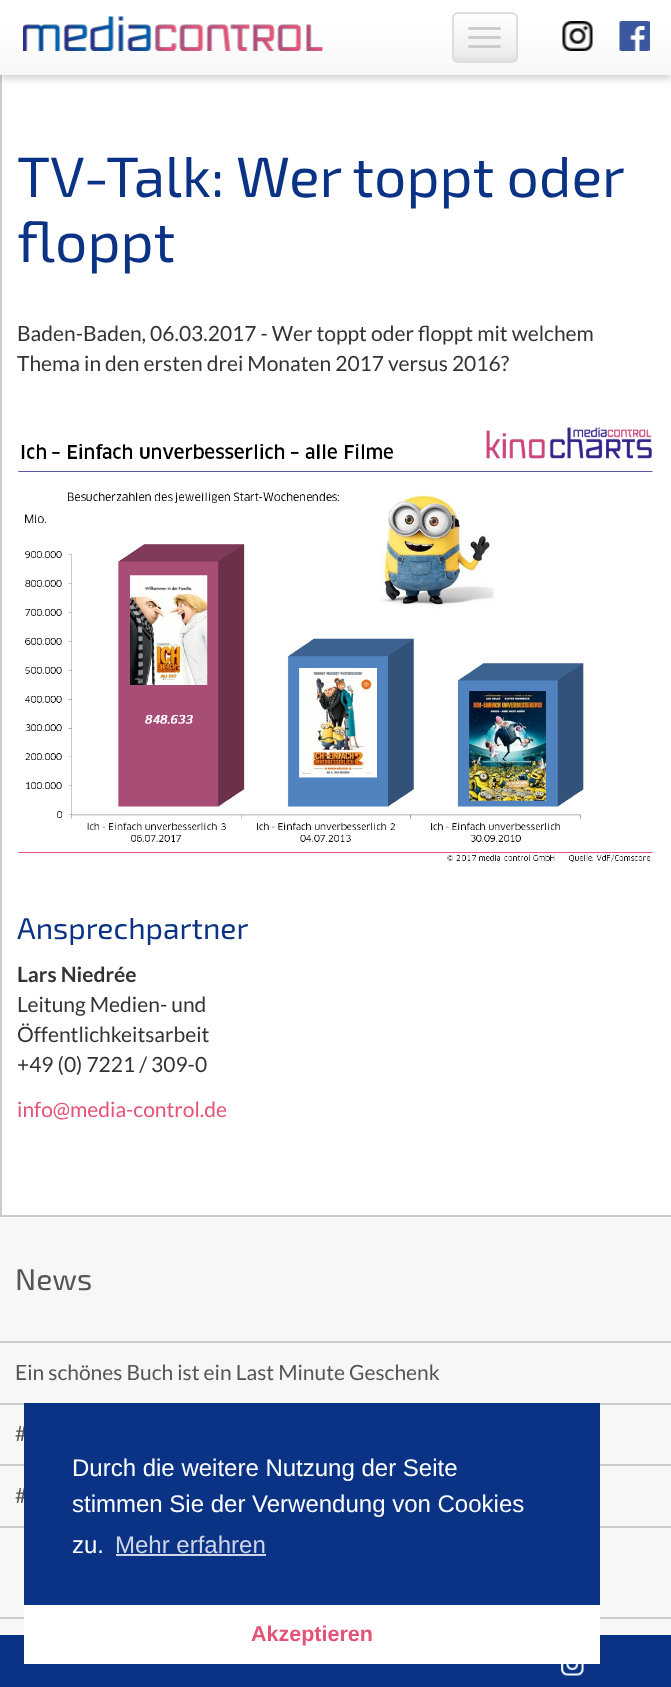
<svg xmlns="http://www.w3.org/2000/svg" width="671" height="1687">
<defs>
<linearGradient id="g1" gradientUnits="userSpaceOnUse" x1="336" y1="75" x2="336" y2="0"><stop offset="0" stop-color="#f7f7f7"/><stop offset="0.7" stop-color="#fff"/><stop offset="1" stop-color="#fff"/></linearGradient>
<clipPath id="clip1"><rect x="452" y="12" width="66" height="51" rx="6"/></clipPath>
<linearGradient id="g2" gradientUnits="userSpaceOnUse" x1="485" y1="62" x2="485" y2="14"><stop offset="0" stop-color="#dfdfdf"/><stop offset="0.2" stop-color="#efefef"/><stop offset="1" stop-color="#fff"/></linearGradient>
</defs>
<rect width="100%" height="100%" fill="#f7f7f7"/>
<rect x="2" y="75" width="669" height="1140" fill="#fff"/>
<rect y="1215" width="671" height="2" fill="#ccc"/>
<rect y="75" width="2" height="1142" fill="#ccc"/>
<rect y="3" width="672" height="75" fill="#00000033" filter="blur(4px)"/>
<rect width="671" height="75" fill="url(#g1)"/>
<image x="23" y="16" width="300" height="35" href="media/1.png"/>
<g clip-path="url(#clip1)">
<rect x="452" y="14" width="66" height="48" fill="url(#g2)"/>
</g>
<rect x="453" y="13" width="64" height="49" rx="5" fill="none" stroke="#ddd" stroke-width="2"/>
<rect x="468" y="27" width="33" height="3" rx="1.5" fill="#ccc"/>
<rect x="468" y="36" width="33" height="3" rx="1.5" fill="#ccc"/>
<rect x="468" y="45" width="33" height="3" rx="1.5" fill="#ccc"/>
<image x="562" y="21" width="31" height="30" href="media/2.png"/>
<image x="619" y="21" width="31" height="30" href="media/3.png"/>
<text x="17" y="197" word-spacing="-0.5" style="font-family:'Exo 2';font-size:57px;fill:#0b3385">TV-Talk: Wer toppt oder</text>
<text x="17" y="262" style="font-family:'Exo 2';font-size:57px;fill:#0b3385">floppt</text>
<text x="17" y="341" style="font-family:Lato;font-size:21px;fill:#333">Baden-Baden, 06.03.2017 - Wer toppt oder floppt mit welchem</text>
<text x="17" y="371" style="font-family:Lato;font-size:21px;fill:#333">Thema in den ersten drei Monaten 2017 versus 2016?</text>
<image x="18" y="427" width="635" height="435" href="media/4.png"/>
<text x="17" y="939" style="font-family:'Exo 2';font-size:30px;fill:#0b3385">Ansprechpartner</text>
<text x="17" y="982" style="font-family:Lato;font-size:21px;font-weight:bold;fill:#333">Lars Niedrée</text>
<text x="17" y="1012" style="font-family:Lato;font-size:21px;fill:#333">Leitung Medien- und</text>
<text x="17" y="1042" style="font-family:Lato;font-size:21px;fill:#333">Öffentlichkeitsarbeit</text>
<text x="17" y="1072" style="font-family:Lato;font-size:21px;fill:#333">+49 (0) 7221 / 309-0</text>
<text x="17" y="1117" style="font-family:Lato;font-size:21px;fill:#e55276">info@media-control.de</text>
<text x="15" y="1290" style="font-family:'Exo 2';font-size:30px;fill:#555">News</text>
<rect y="1341" width="671" height="2" fill="#ccc"/>
<rect y="1403" width="671" height="2" fill="#ccc"/>
<text x="15" y="1380" style="font-family:Lato;font-size:21px;fill:#555">Ein schönes Buch ist ein Last Minute Geschenk</text>
<rect y="1464" width="671" height="2" fill="#ccc"/>
<text x="15" y="1441" style="font-family:Lato;font-size:21px;fill:#555">#</text>
<rect y="1526" width="671" height="2" fill="#ccc"/>
<text x="15" y="1503" style="font-family:Lato;font-size:21px;fill:#555">#</text>
<rect y="1617" width="671" height="2" fill="#ccc"/>
<rect x="24" y="1403" width="576" height="202" fill="#0b3385"/>
<text x="72" y="1476" style="font-family:Liberation Sans;font-size:24px;fill:#fff">Durch die weitere Nutzung der Seite</text>
<text x="72" y="1512" style="font-family:Liberation Sans;font-size:24px;fill:#fff">stimmen Sie der Verwendung von Cookies</text>
<text x="72" y="1553" style="font-family:Liberation Sans;font-size:24px;fill:#fff">zu.</text>
<text x="115" y="1553" style="font-family:Liberation Sans;font-size:24px;fill:#ced6e7">Mehr erfahren</text>
<rect x="116" y="1554" width="150" height="2" fill="#ced6e7"/>
<rect y="1635" width="671" height="52" fill="#0b3385"/>
<rect x="24" y="1605" width="576" height="59" fill="#fff"/>
<text x="251" y="1641" style="font-family:Liberation Sans;font-size:21.5px;font-weight:bold;fill:#e55276">Akzeptieren</text>
<image x="561" y="1664" width="23" height="12" href="media/5.png"/>
</svg>
